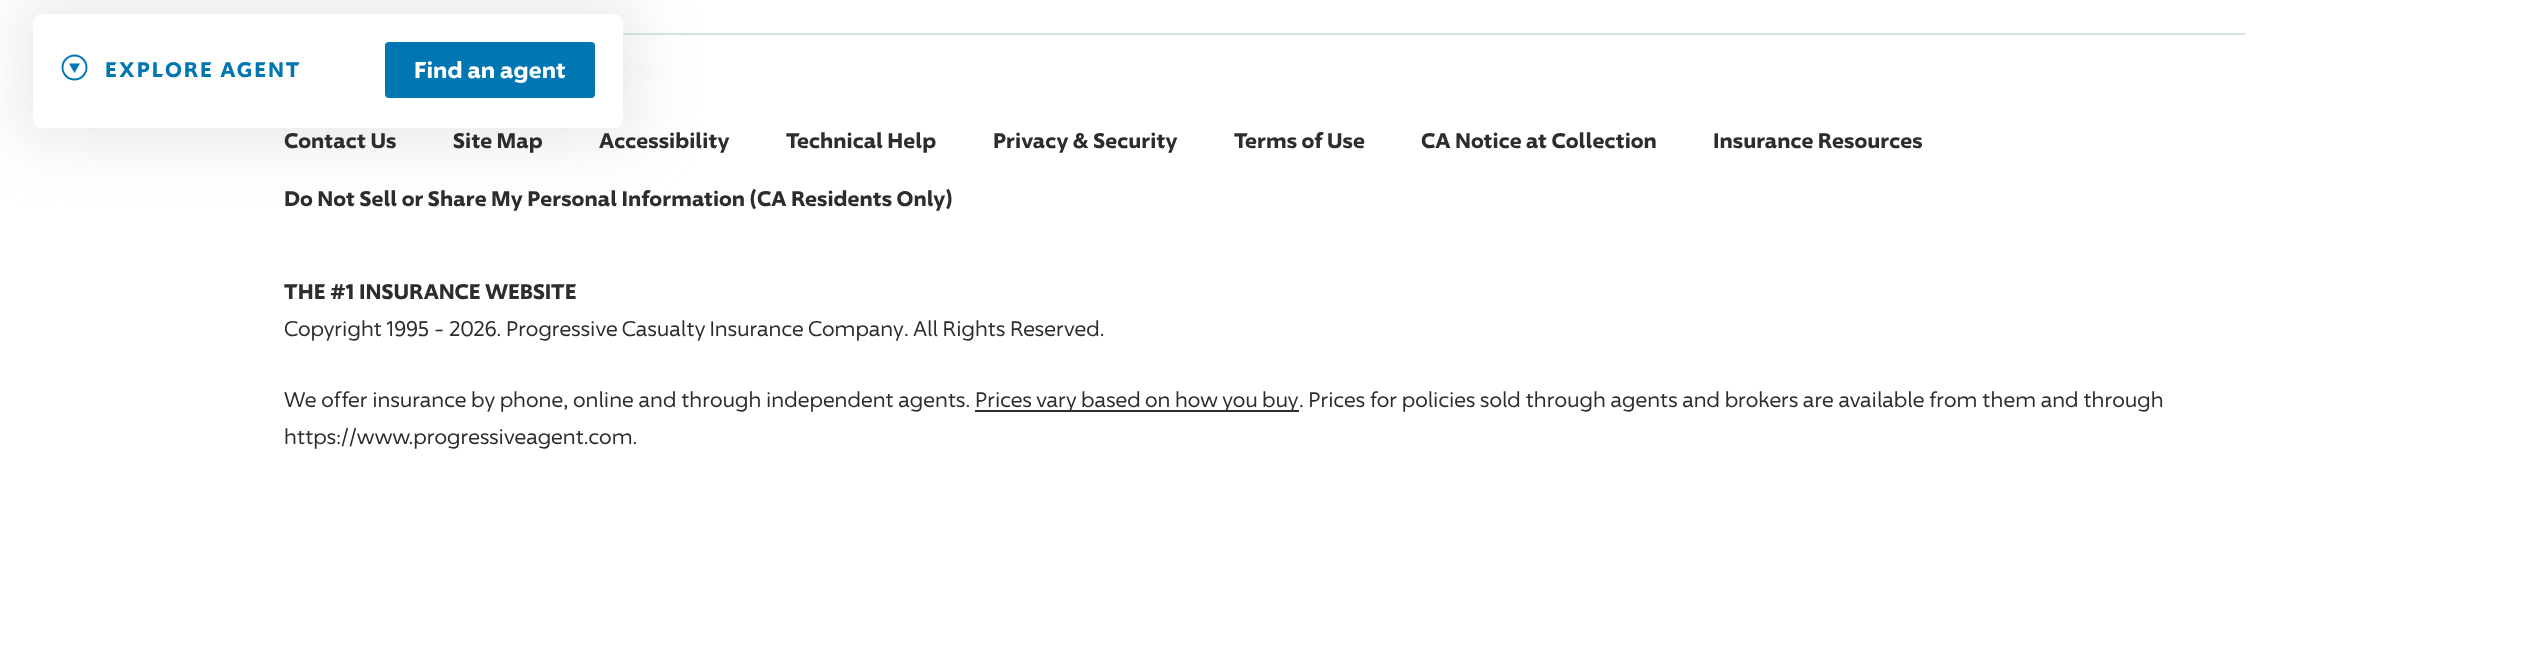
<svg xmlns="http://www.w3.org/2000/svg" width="2528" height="657">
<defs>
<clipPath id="clip1"><path d="M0 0h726v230h-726zm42 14h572c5 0 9 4 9 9v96c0 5-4 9-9 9h-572c-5 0-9-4-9-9v-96c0-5 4-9 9-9z" clip-rule="evenodd"/></clipPath>
</defs>
<rect width="100%" height="100%" fill="#fff"/>
<rect x="623" y="33" width="1622" height="2" fill="#d1e2e5"/>
<g clip-path="url(#clip1)">
<rect x="16" y="-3" width="625" height="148" rx="26" fill="#cccccc66" filter="blur(28px)"/>
</g>
<circle cx="74.5" cy="67.5" r="12" fill="none" stroke="#0077b3" stroke-width="1.9"/>
<path d="M74.5 73l-5.5-9.5h11z" fill="#0077b3"/>
<text x="105" y="77" style="font-family:'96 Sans';font-size:21px;font-weight:bold;letter-spacing:2.1px;fill:#0077b3">EXPLORE AGENT</text>
<rect x="386" y="43" width="208" height="54" rx="3" fill="#0077b3" stroke="#0077b3" stroke-width="2"/>
<text x="414" y="78" style="font-family:'96 Sans';font-size:22.75px;font-weight:bold;fill:#fff">Find an agent</text>
<text x="284" y="148" style="font-family:'96 Sans';font-size:21px;font-weight:bold;fill:#2d2d2d">Contact Us</text>
<text x="453" y="148" style="font-family:'96 Sans';font-size:21px;font-weight:bold;fill:#2d2d2d">Site Map</text>
<text x="599" y="148" style="font-family:'96 Sans';font-size:21px;font-weight:bold;fill:#2d2d2d">Accessibility</text>
<text x="786" y="148" style="font-family:'96 Sans';font-size:21px;font-weight:bold;fill:#2d2d2d">Technical Help</text>
<text x="993" y="148" style="font-family:'96 Sans';font-size:21px;font-weight:bold;fill:#2d2d2d">Privacy &amp; Security</text>
<text x="1234" y="148" style="font-family:'96 Sans';font-size:21px;font-weight:bold;fill:#2d2d2d">Terms of Use</text>
<text x="1421" y="148" style="font-family:'96 Sans';font-size:21px;font-weight:bold;fill:#2d2d2d">CA Notice at Collection</text>
<text x="1713" y="148" style="font-family:'96 Sans';font-size:21px;font-weight:bold;fill:#2d2d2d">Insurance Resources</text>
<text x="284" y="206" style="font-family:'96 Sans';font-size:21px;font-weight:bold;fill:#2d2d2d">Do Not Sell or Share My Personal Information (CA Residents Only)</text>
<text x="284" y="299" style="font-family:'96 Sans';font-size:21px;font-weight:bold;fill:#2d2d2d">THE #1 INSURANCE WEBSITE</text>
<text x="284" y="336" style="font-family:'96 Sans';font-size:21px;fill:#2d2d2d">Copyright 1995 - 2026.</text>
<text x="506" y="336" word-spacing="-0.5" style="font-family:'96 Sans';font-size:21px;fill:#2d2d2d">Progressive Casualty Insurance Company</text>
<text x="904" y="336" style="font-family:'96 Sans';font-size:21px;fill:#2d2d2d">. All Rights Reserved.</text>
<text x="284" y="407" style="font-family:'96 Sans';font-size:21px;fill:#2d2d2d">We offer insurance by phone, online and through independent agents.</text>
<rect x="975" y="410" width="324" height="2" fill="#2d2d2d"/>
<text x="975" y="407" word-spacing="-0.25" style="font-family:'96 Sans';font-size:21px;fill:#2d2d2d">Prices vary based on how you buy</text>
<text x="1299" y="407" style="font-family:'96 Sans';font-size:21px;fill:#2d2d2d">. Prices for policies sold through agents and brokers are available from them and through</text>
<text x="284" y="444" style="font-family:'96 Sans';font-size:21px;fill:#2d2d2d">https://www.progressiveagent.com.</text>
</svg>
